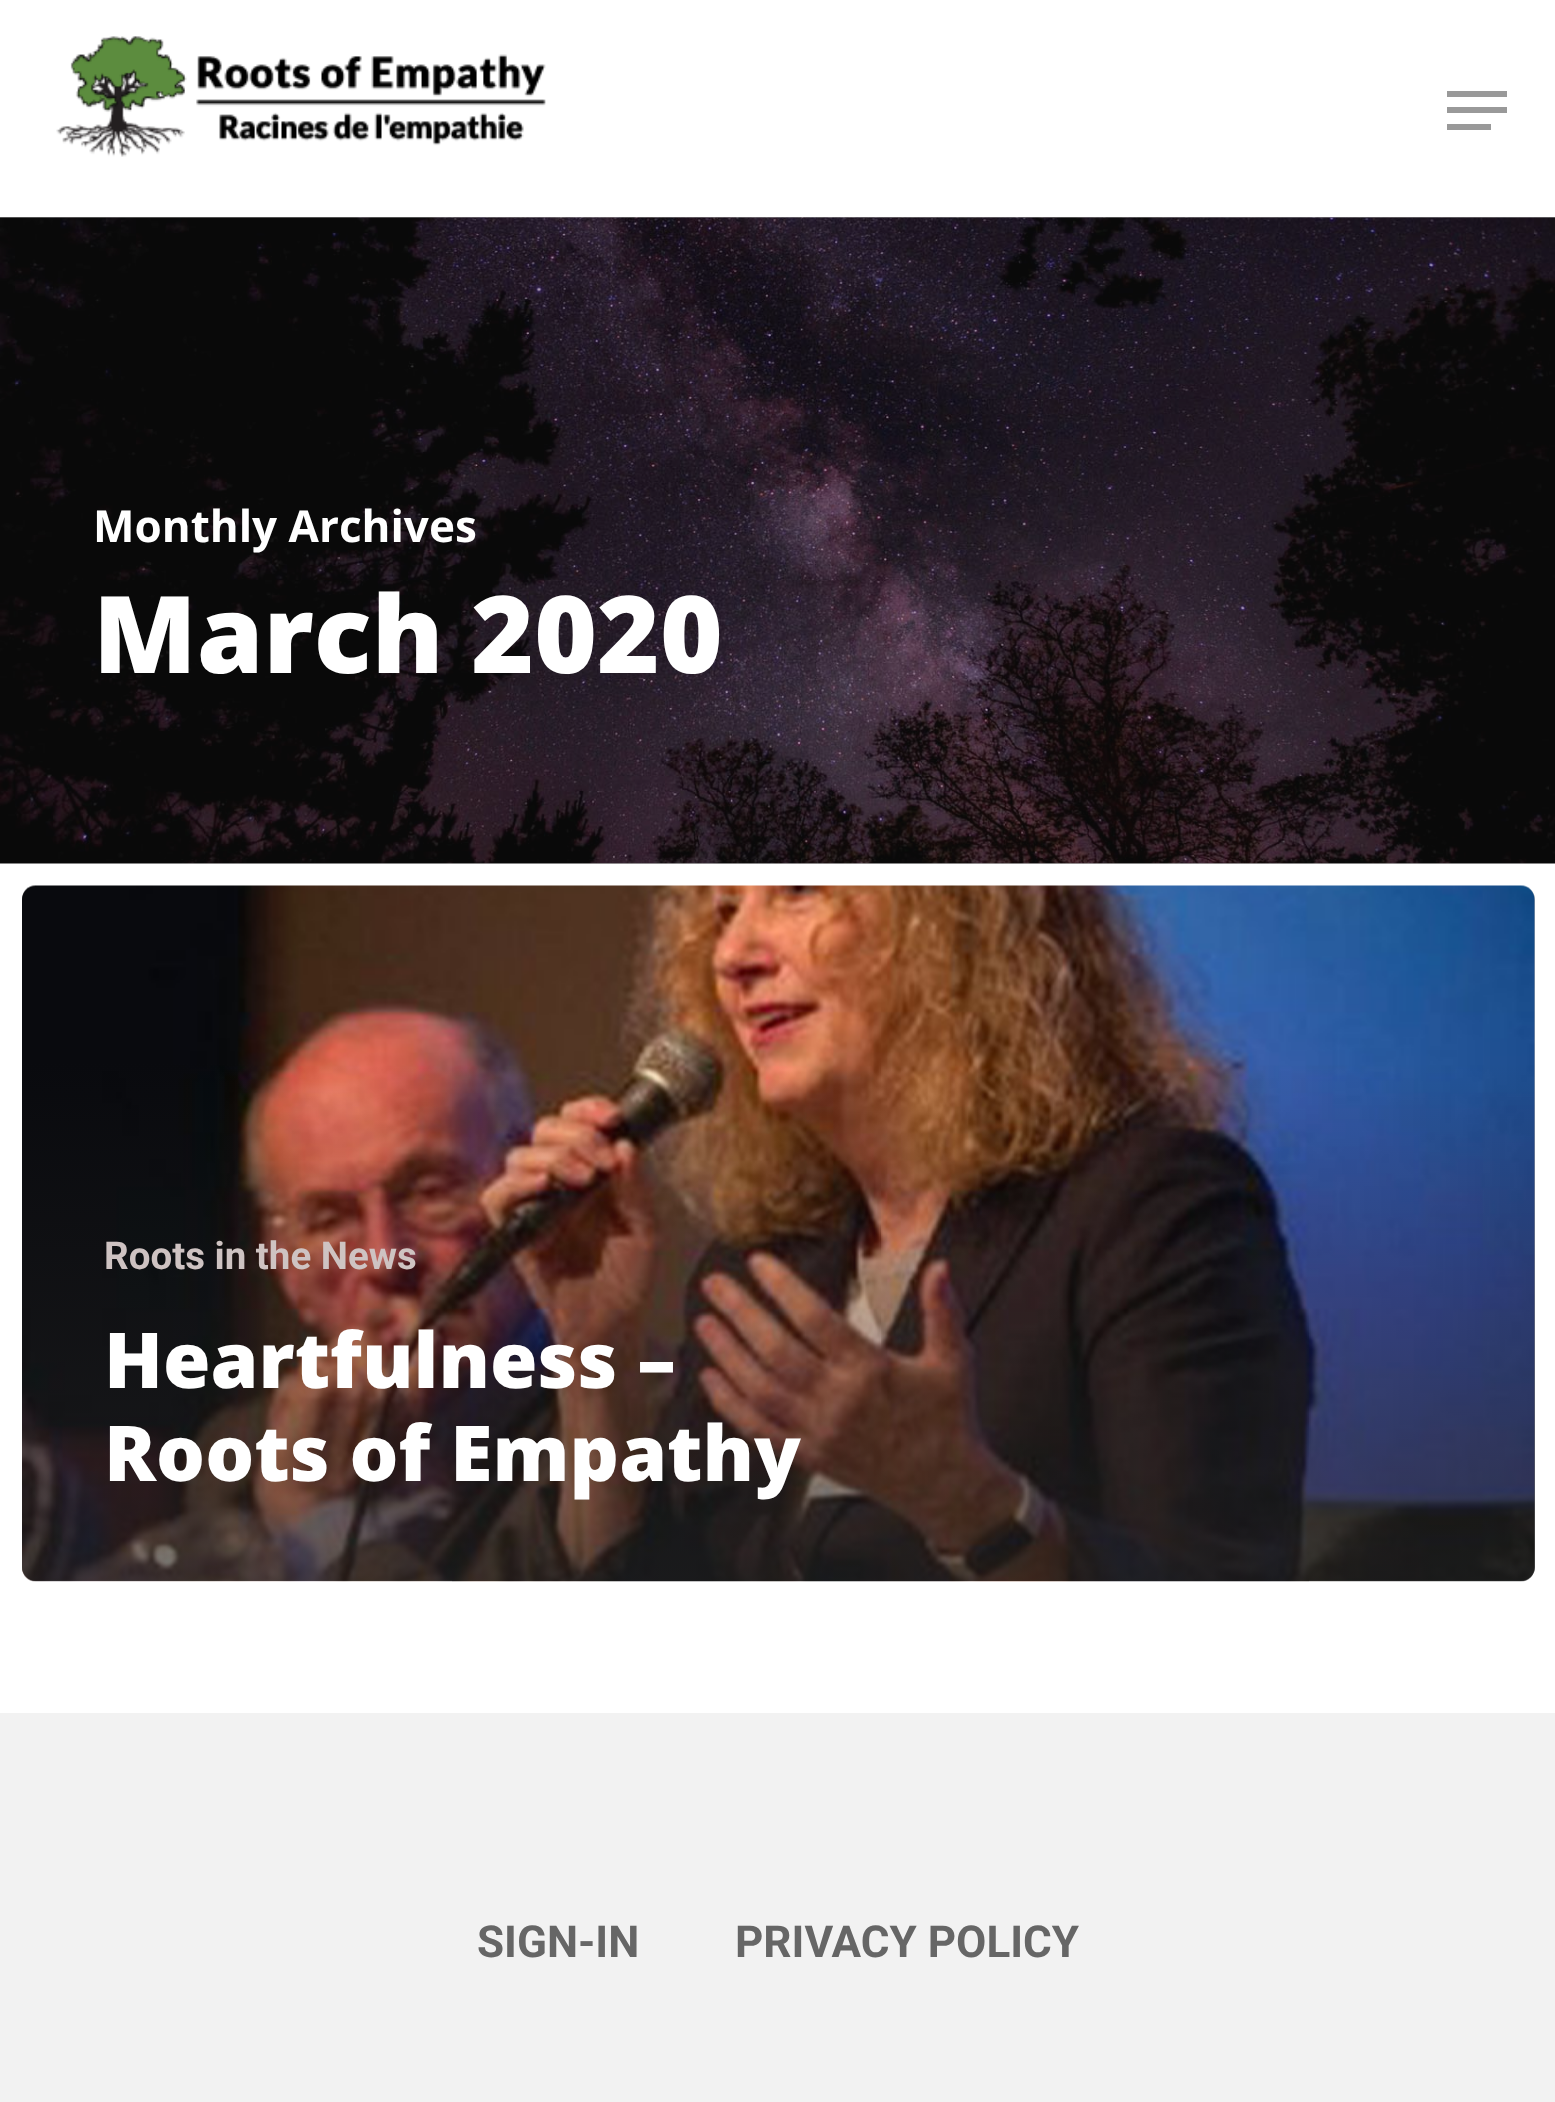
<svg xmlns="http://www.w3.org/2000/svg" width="1555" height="2102">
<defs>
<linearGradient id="g1" gradientUnits="userSpaceOnUse" x1="782" y1="1062" x2="782" y2="1584"><stop offset="0" stop-color="#232323" stop-opacity="0"/><stop offset="1" stop-color="#232323" stop-opacity="0.65"/></linearGradient>
</defs>
<rect width="100%" height="100%" fill="#fff"/>
<rect y="217" width="1555" height="647" fill="#afafaf"/>
<image x="56" y="36" width="490" height="121" href="media/1.png"/>
<rect x="1447" y="91" width="60" height="6" fill="#999"/>
<rect x="1447" y="124" width="44" height="6" fill="#999"/>
<rect x="1447" y="107" width="60" height="6" fill="#999"/>
<image x="0" y="217" width="1555" height="647" href="media/2.png"/>
<text x="93" y="542" style="font-family:Open Sans;font-size:44px;font-weight:bold;fill:#fff">Monthly Archives</text>
<text x="93" y="673" style="font-family:Open Sans;font-size:107.25px;font-weight:800;fill:#fff">March 2020</text>
<rect x="22" y="886" width="1513" height="695" rx="14" fill="#b3b3b3"/>
<image x="22" y="885" width="1513" height="697" href="media/3.png"/>
<path d="M22 1062h1513v505c0 7.5-6.5 14-14 14h-1485c-7.5 0-14-6.5-14-14z" fill="url(#g1)"/>
<text x="104" y="1269" style="font-family:Roboto;font-size:38.5px;font-weight:bold;fill:#cec3c2">Roots in the News</text>
<text x="104" y="1388" style="font-family:Open Sans;font-size:77px;font-weight:800;fill:#fff">Heartfulness –</text>
<text x="104" y="1481" style="font-family:Open Sans;font-size:77px;font-weight:800;fill:#fff">Roots of Empathy</text>
<rect y="1713" width="1555" height="389" fill="#f2f2f2"/>
<text x="477" y="1957" style="font-family:Roboto;font-size:44px;font-weight:bold;fill:#666">SIGN-IN</text>
<text x="735" y="1957" style="font-family:Roboto;font-size:44px;font-weight:bold;fill:#666">PRIVACY POLICY</text>
</svg>
